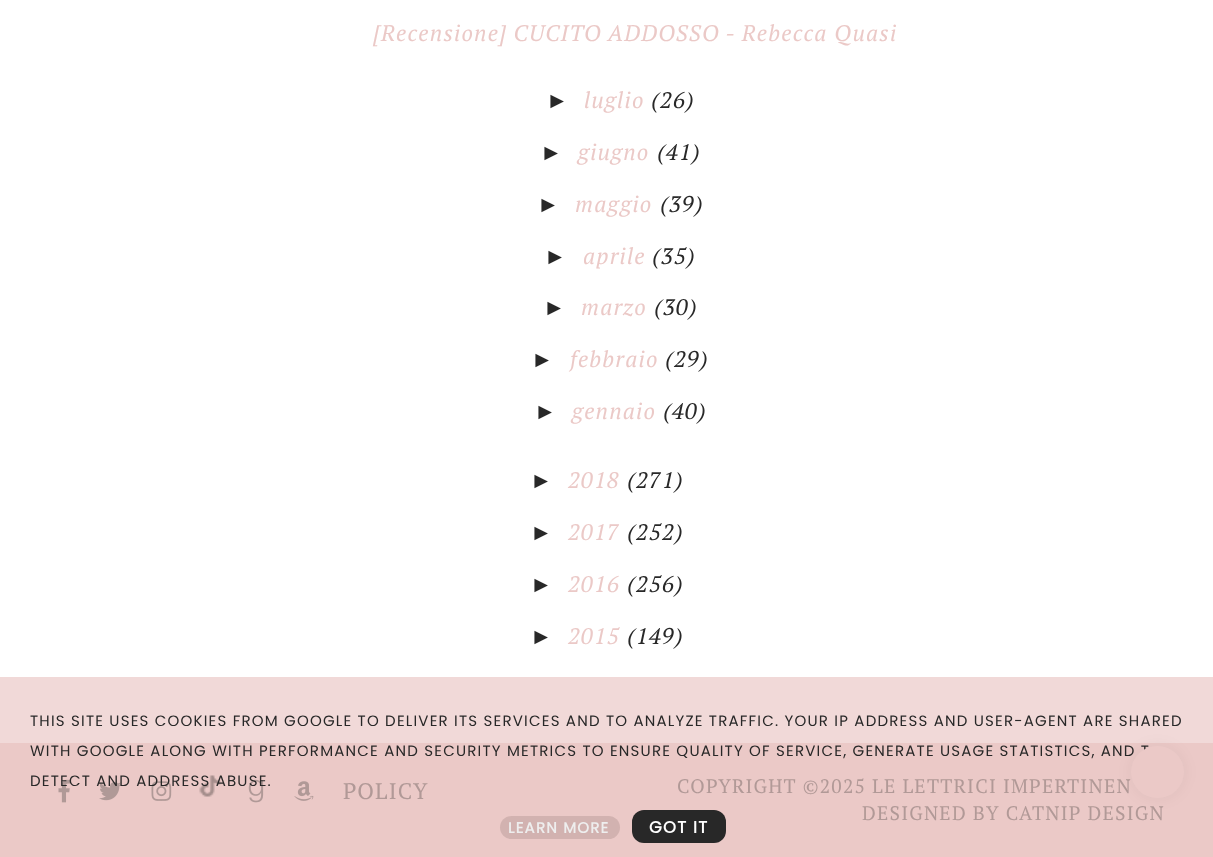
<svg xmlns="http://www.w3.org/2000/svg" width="1213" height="857">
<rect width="100%" height="100%" fill="#fff"/>
<rect y="677" width="1213" height="66" fill="#f1d9d8"/>
<text x="373" y="41" style="font-family:PT Serif;font-size:22.5px;font-style:italic;letter-spacing:1.2px;fill:#ebc9c7">[Recensione] CUCITO ADDOSSO - Rebecca Quasi</text>
<text x="546" y="108" style="font-family:Liberation Sans;font-size:22.5px;font-style:italic;letter-spacing:1.2px;fill:#282828">►</text>
<text x="584" y="108" style="font-family:PT Serif;font-size:22.5px;font-style:italic;letter-spacing:1.2px;fill:#ebc9c7">luglio</text>
<text x="651" y="108" style="font-family:PT Serif;font-size:22.5px;font-style:italic;letter-spacing:1.2px;fill:#282828">(26)</text>
<text x="540" y="160" style="font-family:Liberation Sans;font-size:22.5px;font-style:italic;letter-spacing:1.2px;fill:#282828">►</text>
<text x="578" y="160" style="font-family:PT Serif;font-size:22.5px;font-style:italic;letter-spacing:1.2px;fill:#ebc9c7">giugno</text>
<text x="657" y="160" style="font-family:PT Serif;font-size:22.5px;font-style:italic;letter-spacing:1.2px;fill:#282828">(41)</text>
<text x="537" y="212" style="font-family:Liberation Sans;font-size:22.5px;font-style:italic;letter-spacing:1.2px;fill:#282828">►</text>
<text x="575" y="212" style="font-family:PT Serif;font-size:22.5px;font-style:italic;letter-spacing:1.2px;fill:#ebc9c7">maggio</text>
<text x="660" y="212" style="font-family:PT Serif;font-size:22.5px;font-style:italic;letter-spacing:1.2px;fill:#282828">(39)</text>
<text x="544" y="264" style="font-family:Liberation Sans;font-size:22.5px;font-style:italic;letter-spacing:1.2px;fill:#282828">►</text>
<text x="583" y="264" style="font-family:PT Serif;font-size:22.5px;font-style:italic;letter-spacing:1.2px;fill:#ebc9c7">aprile</text>
<text x="652" y="264" style="font-family:PT Serif;font-size:22.5px;font-style:italic;letter-spacing:1.2px;fill:#282828">(35)</text>
<text x="543" y="315" style="font-family:Liberation Sans;font-size:22.5px;font-style:italic;letter-spacing:1.2px;fill:#282828">►</text>
<text x="581" y="315" style="font-family:PT Serif;font-size:22.5px;font-style:italic;letter-spacing:1.2px;fill:#ebc9c7">marzo</text>
<text x="654" y="315" style="font-family:PT Serif;font-size:22.5px;font-style:italic;letter-spacing:1.2px;fill:#282828">(30)</text>
<text x="531" y="367" style="font-family:Liberation Sans;font-size:22.5px;font-style:italic;letter-spacing:1.2px;fill:#282828">►</text>
<text x="570" y="367" style="font-family:PT Serif;font-size:22.5px;font-style:italic;letter-spacing:1.2px;fill:#ebc9c7">febbraio</text>
<text x="665" y="367" style="font-family:PT Serif;font-size:22.5px;font-style:italic;letter-spacing:1.2px;fill:#282828">(29)</text>
<text x="534" y="419" style="font-family:Liberation Sans;font-size:22.5px;font-style:italic;letter-spacing:1.2px;fill:#282828">►</text>
<text x="572" y="419" style="font-family:PT Serif;font-size:22.5px;font-style:italic;letter-spacing:1.2px;fill:#ebc9c7">gennaio</text>
<text x="663" y="419" style="font-family:PT Serif;font-size:22.5px;font-style:italic;letter-spacing:1.2px;fill:#282828">(40)</text>
<text x="530" y="488" style="font-family:Liberation Sans;font-size:22.5px;font-style:italic;letter-spacing:1.2px;fill:#282828">►</text>
<text x="568" y="488" style="font-family:PT Serif;font-size:22.5px;font-style:italic;letter-spacing:1.2px;fill:#ebc9c7">2018</text>
<text x="627" y="488" style="font-family:PT Serif;font-size:22.5px;font-style:italic;letter-spacing:1.2px;fill:#282828">(271)</text>
<text x="530" y="540" style="font-family:Liberation Sans;font-size:22.5px;font-style:italic;letter-spacing:1.2px;fill:#282828">►</text>
<text x="568" y="540" style="font-family:PT Serif;font-size:22.5px;font-style:italic;letter-spacing:1.2px;fill:#ebc9c7">2017</text>
<text x="627" y="540" style="font-family:PT Serif;font-size:22.5px;font-style:italic;letter-spacing:1.2px;fill:#282828">(252)</text>
<text x="530" y="592" style="font-family:Liberation Sans;font-size:22.5px;font-style:italic;letter-spacing:1.2px;fill:#282828">►</text>
<text x="568" y="592" style="font-family:PT Serif;font-size:22.5px;font-style:italic;letter-spacing:1.2px;fill:#ebc9c7">2016</text>
<text x="627" y="592" style="font-family:PT Serif;font-size:22.5px;font-style:italic;letter-spacing:1.2px;fill:#282828">(256)</text>
<text x="530" y="644" style="font-family:Liberation Sans;font-size:22.5px;font-style:italic;letter-spacing:1.2px;fill:#282828">►</text>
<text x="568" y="644" style="font-family:PT Serif;font-size:22.5px;font-style:italic;letter-spacing:1.2px;fill:#ebc9c7">2015</text>
<text x="627" y="644" style="font-family:PT Serif;font-size:22.5px;font-style:italic;letter-spacing:1.2px;fill:#282828">(149)</text>
<rect y="743" width="1213" height="114" fill="#ebc9c7"/>
<image x="58" y="779" width="13" height="24" href="media/1.png"/>
<image x="99" y="781" width="23" height="20" href="media/2.png"/>
<image x="151" y="781" width="21" height="20" href="media/3.png"/>
<image x="199" y="775" width="22" height="22" href="media/4.png"/>
<image x="248" y="779" width="16" height="24" href="media/5.png"/>
<image x="294" y="781" width="20" height="20" href="media/6.png"/>
<text x="343" y="799" style="font-family:PT Serif;font-size:22.5px;letter-spacing:1.2px;fill:#b19997">POLICY</text>
<text x="677" y="793" style="font-family:PT Serif;font-size:19.5px;letter-spacing:1.2px;fill:#b19997">COPYRIGHT ©2025 LE LETTRICI IMPERTINEN</text>
<text x="862" y="820" style="font-family:PT Serif;font-size:19.5px;letter-spacing:1.2px;fill:#b19997">DESIGNED BY CATNIP DESIGN</text>
<text x="30" y="726" style="font-family:Poppins;font-size:15px;letter-spacing:1.2px;fill:#282828">THIS SITE USES COOKIES FROM GOOGLE TO DELIVER ITS SERVICES AND TO ANALYZE TRAFFIC. YOUR IP ADDRESS AND USER-AGENT ARE SHARED</text>
<text x="30" y="756" style="font-family:Poppins;font-size:15px;letter-spacing:1.2px;fill:#282828">WITH GOOGLE ALONG WITH PERFORMANCE AND SECURITY METRICS TO ENSURE QUALITY OF SERVICE, GENERATE USAGE STATISTICS, AND T</text>
<text x="30" y="786" style="font-family:Poppins;font-size:15px;letter-spacing:1.2px;fill:#282828">DETECT AND ADDRESS ABUSE.</text>
<rect x="500" y="816" width="120" height="23" rx="11.5" fill="#d2b2b0"/>
<text x="508" y="833" style="font-family:Poppins;font-size:15px;font-weight:bold;letter-spacing:1.2px;fill:#eee">LEARN MORE</text>
<rect x="632" y="810" width="94" height="33" rx="12" fill="#282828"/>
<text x="649" y="833" style="font-family:Poppins;font-size:16.5px;font-weight:bold;letter-spacing:1.2px;fill:#fff">GOT IT</text>
<rect x="1131" y="746" width="53" height="52" rx="26" fill="#0000000d" filter="blur(7.5px)"/>
<rect x="1131" y="746" width="53" height="52" rx="26" fill="#ebc9c7"/>
</svg>
